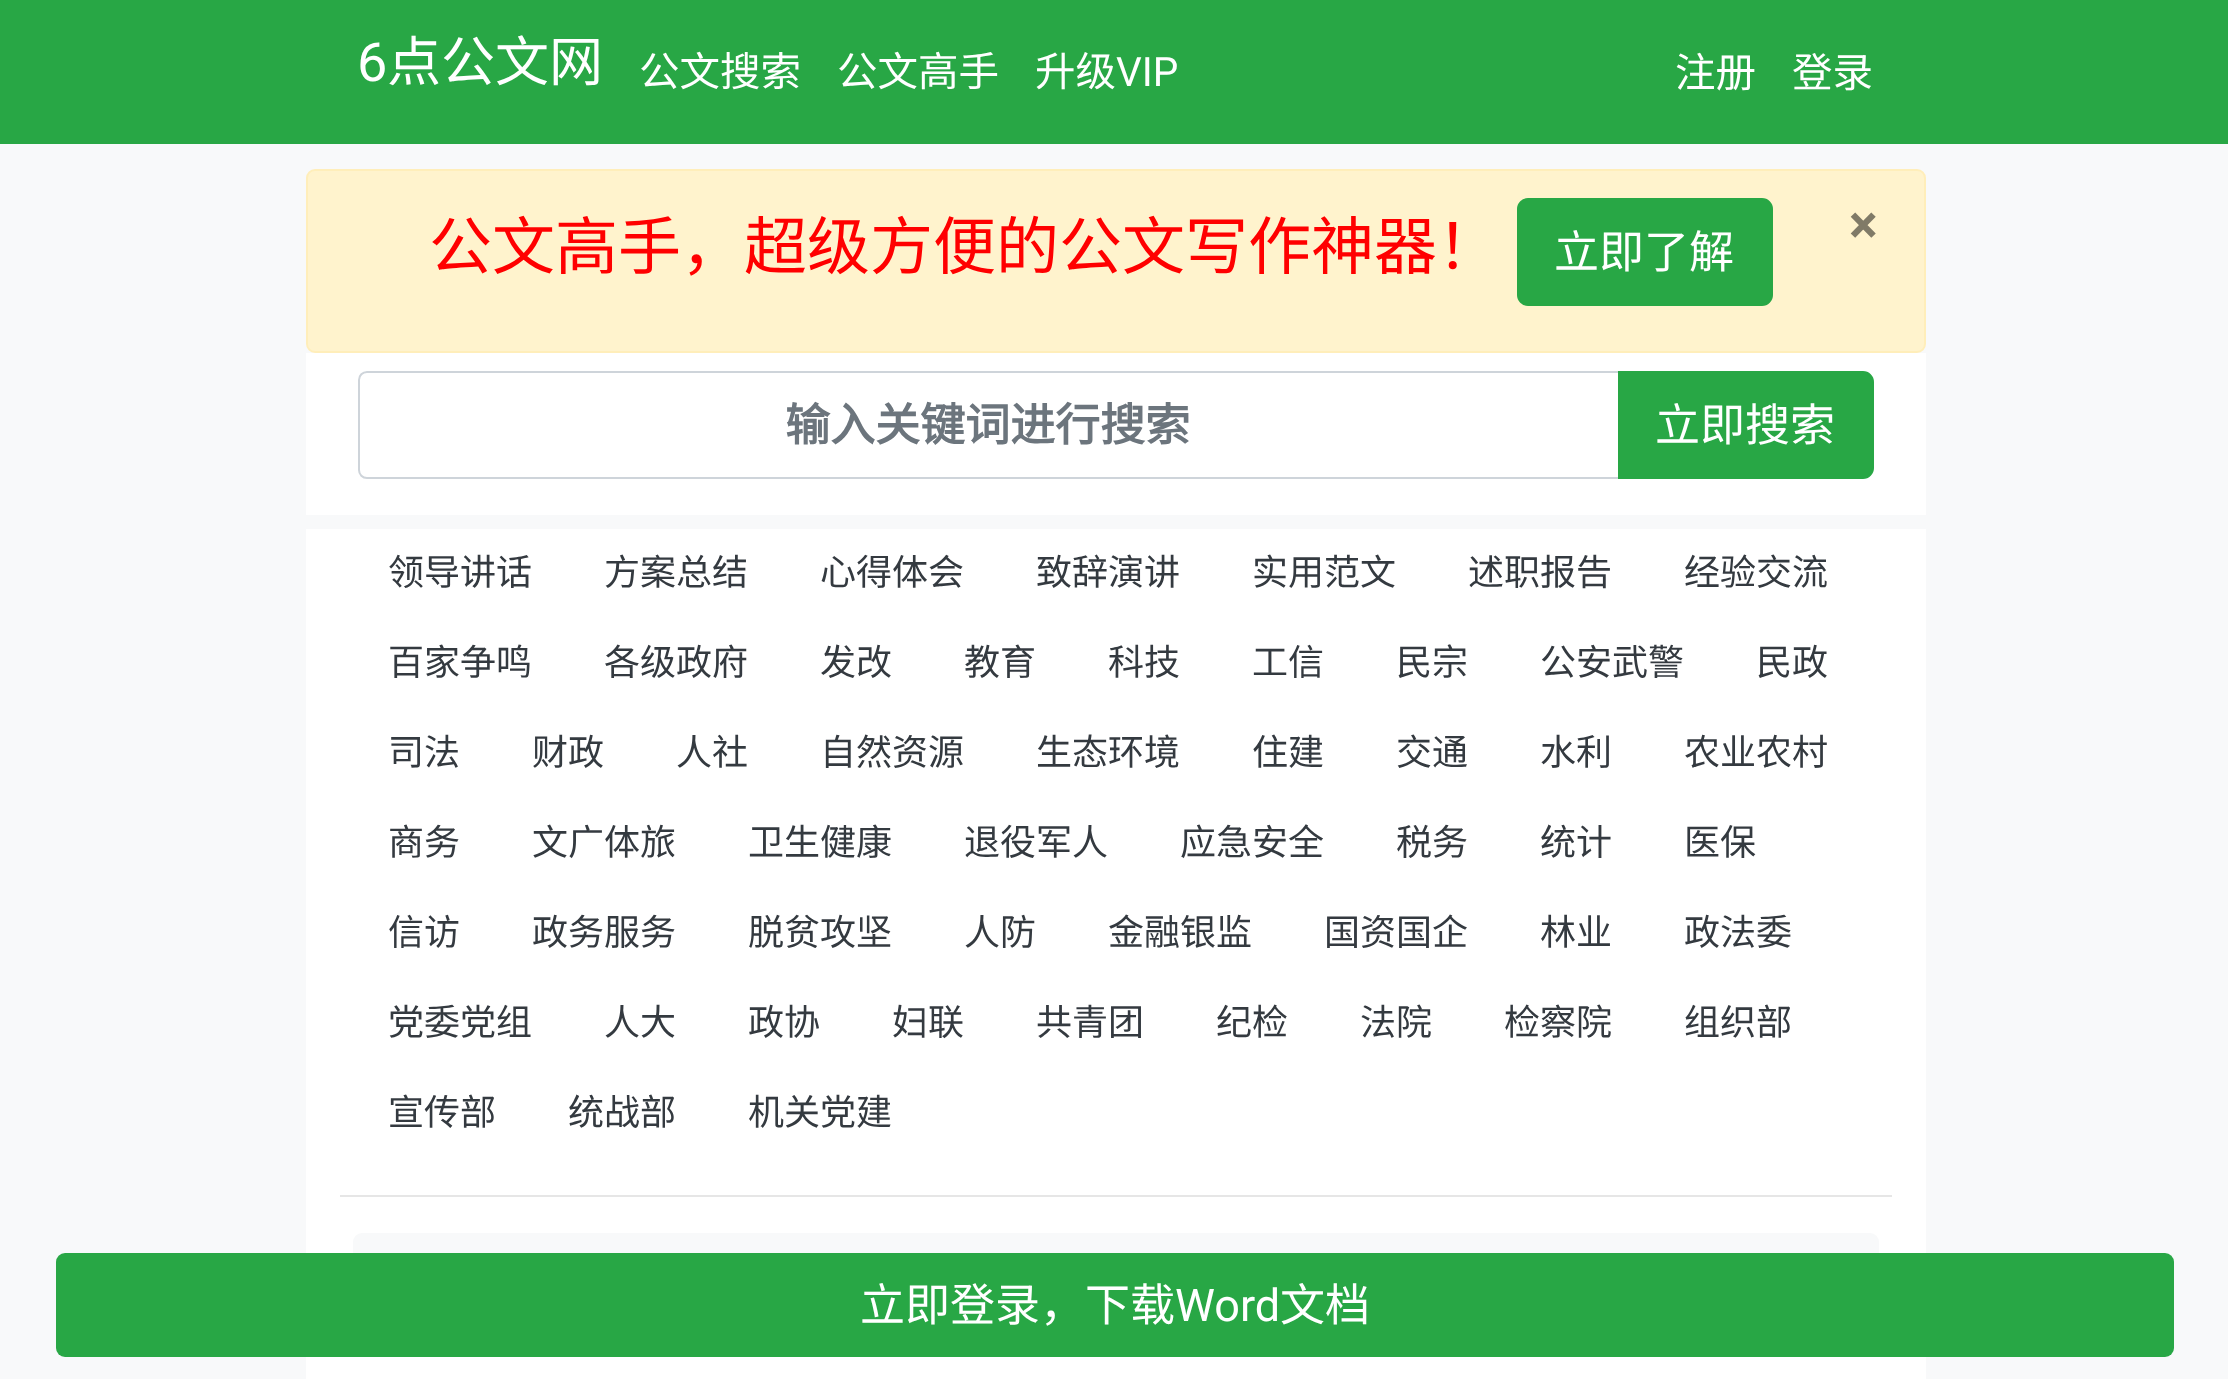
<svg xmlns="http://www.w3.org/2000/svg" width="2228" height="1379">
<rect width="100%" height="100%" fill="#f8f9fa"/>
<rect width="2228" height="144" fill="#28a745"/>
<text x="357" y="81" style="font-family:Roboto;font-size:54px;fill:#fff">6</text>
<text x="387" y="81" style="font-family:Noto Sans CJK SC;font-size:54px;fill:#fff">点公文网</text>
<text x="639" y="86" style="font-family:Noto Sans CJK SC;font-size:40.5px;fill:#fff">公文搜索</text>
<text x="837" y="86" style="font-family:Noto Sans CJK SC;font-size:40.5px;fill:#fff">公文高手</text>
<text x="1035" y="86" style="font-family:Noto Sans CJK SC;font-size:40.5px;fill:#fff">升级</text>
<text x="1116" y="86" style="font-family:Roboto;font-size:40.5px;fill:#fff">VIP</text>
<text x="1675" y="87" style="font-family:Noto Sans CJK SC;font-size:40.5px;fill:#fff">注册</text>
<text x="1792" y="87" style="font-family:Noto Sans CJK SC;font-size:40.5px;fill:#fff">登录</text>
<rect x="307" y="170" width="1618" height="182" rx="8" fill="#fff3cd" stroke="#ffeeba" stroke-width="2"/>
<text x="429" y="269" style="font-family:Noto Sans CJK SC;font-size:63px;fill:#f00">公文高手，超级方便的公文写作神器！</text>
<rect x="1518" y="199" width="254" height="106" rx="10" fill="#28a745" stroke="#28a745" stroke-width="2"/>
<text x="1554" y="268" style="font-family:Noto Sans CJK SC;font-size:45px;fill:#fff">立即了解</text>
<text x="1849" y="243" style="font-family:Roboto;font-size:54px;font-weight:bold;fill:#807a67">×</text>
<rect x="306" y="353" width="1620" height="162" fill="#fff"/>
<path d="M367 372h1252v106h-1252c-4.5 0-8-3.5-8-8v-90c0-4.5 3.5-8 8-8z" fill="none" stroke="#ced4da" stroke-width="2"/>
<text x="785" y="441" style="font-family:Noto Sans CJK SC;font-size:45px;font-weight:bold;fill:#6c757d">输入关键词进行搜索</text>
<path d="M1619 372h244c5.5 0 10 4.5 10 10v86c0 5.5-4.5 10-10 10h-244z" fill="#28a745" stroke="#28a745" stroke-width="2"/>
<text x="1655" y="441" style="font-family:Noto Sans CJK SC;font-size:45px;fill:#fff">立即搜索</text>
<rect x="306" y="529" width="1620" height="850" fill="#fff"/>
<text x="388" y="585" style="font-family:Noto Sans CJK SC;font-size:36px;fill:#343a40">领导讲话</text>
<text x="604" y="585" style="font-family:Noto Sans CJK SC;font-size:36px;fill:#343a40">方案总结</text>
<text x="820" y="585" style="font-family:Noto Sans CJK SC;font-size:36px;fill:#343a40">心得体会</text>
<text x="1036" y="585" style="font-family:Noto Sans CJK SC;font-size:36px;fill:#343a40">致辞演讲</text>
<text x="1252" y="585" style="font-family:Noto Sans CJK SC;font-size:36px;fill:#343a40">实用范文</text>
<text x="1468" y="585" style="font-family:Noto Sans CJK SC;font-size:36px;fill:#343a40">述职报告</text>
<text x="1684" y="585" style="font-family:Noto Sans CJK SC;font-size:36px;fill:#343a40">经验交流</text>
<text x="388" y="675" style="font-family:Noto Sans CJK SC;font-size:36px;fill:#343a40">百家争鸣</text>
<text x="604" y="675" style="font-family:Noto Sans CJK SC;font-size:36px;fill:#343a40">各级政府</text>
<text x="820" y="675" style="font-family:Noto Sans CJK SC;font-size:36px;fill:#343a40">发改</text>
<text x="964" y="675" style="font-family:Noto Sans CJK SC;font-size:36px;fill:#343a40">教育</text>
<text x="1108" y="675" style="font-family:Noto Sans CJK SC;font-size:36px;fill:#343a40">科技</text>
<text x="1252" y="675" style="font-family:Noto Sans CJK SC;font-size:36px;fill:#343a40">工信</text>
<text x="1396" y="675" style="font-family:Noto Sans CJK SC;font-size:36px;fill:#343a40">民宗</text>
<text x="1540" y="675" style="font-family:Noto Sans CJK SC;font-size:36px;fill:#343a40">公安武警</text>
<text x="1756" y="675" style="font-family:Noto Sans CJK SC;font-size:36px;fill:#343a40">民政</text>
<text x="388" y="765" style="font-family:Noto Sans CJK SC;font-size:36px;fill:#343a40">司法</text>
<text x="532" y="765" style="font-family:Noto Sans CJK SC;font-size:36px;fill:#343a40">财政</text>
<text x="676" y="765" style="font-family:Noto Sans CJK SC;font-size:36px;fill:#343a40">人社</text>
<text x="820" y="765" style="font-family:Noto Sans CJK SC;font-size:36px;fill:#343a40">自然资源</text>
<text x="1036" y="765" style="font-family:Noto Sans CJK SC;font-size:36px;fill:#343a40">生态环境</text>
<text x="1252" y="765" style="font-family:Noto Sans CJK SC;font-size:36px;fill:#343a40">住建</text>
<text x="1396" y="765" style="font-family:Noto Sans CJK SC;font-size:36px;fill:#343a40">交通</text>
<text x="1540" y="765" style="font-family:Noto Sans CJK SC;font-size:36px;fill:#343a40">水利</text>
<text x="1684" y="765" style="font-family:Noto Sans CJK SC;font-size:36px;fill:#343a40">农业农村</text>
<text x="388" y="855" style="font-family:Noto Sans CJK SC;font-size:36px;fill:#343a40">商务</text>
<text x="532" y="855" style="font-family:Noto Sans CJK SC;font-size:36px;fill:#343a40">文广体旅</text>
<text x="748" y="855" style="font-family:Noto Sans CJK SC;font-size:36px;fill:#343a40">卫生健康</text>
<text x="964" y="855" style="font-family:Noto Sans CJK SC;font-size:36px;fill:#343a40">退役军人</text>
<text x="1180" y="855" style="font-family:Noto Sans CJK SC;font-size:36px;fill:#343a40">应急安全</text>
<text x="1396" y="855" style="font-family:Noto Sans CJK SC;font-size:36px;fill:#343a40">税务</text>
<text x="1540" y="855" style="font-family:Noto Sans CJK SC;font-size:36px;fill:#343a40">统计</text>
<text x="1684" y="855" style="font-family:Noto Sans CJK SC;font-size:36px;fill:#343a40">医保</text>
<text x="388" y="945" style="font-family:Noto Sans CJK SC;font-size:36px;fill:#343a40">信访</text>
<text x="532" y="945" style="font-family:Noto Sans CJK SC;font-size:36px;fill:#343a40">政务服务</text>
<text x="748" y="945" style="font-family:Noto Sans CJK SC;font-size:36px;fill:#343a40">脱贫攻坚</text>
<text x="964" y="945" style="font-family:Noto Sans CJK SC;font-size:36px;fill:#343a40">人防</text>
<text x="1108" y="945" style="font-family:Noto Sans CJK SC;font-size:36px;fill:#343a40">金融银监</text>
<text x="1324" y="945" style="font-family:Noto Sans CJK SC;font-size:36px;fill:#343a40">国资国企</text>
<text x="1540" y="945" style="font-family:Noto Sans CJK SC;font-size:36px;fill:#343a40">林业</text>
<text x="1684" y="945" style="font-family:Noto Sans CJK SC;font-size:36px;fill:#343a40">政法委</text>
<text x="388" y="1035" style="font-family:Noto Sans CJK SC;font-size:36px;fill:#343a40">党委党组</text>
<text x="604" y="1035" style="font-family:Noto Sans CJK SC;font-size:36px;fill:#343a40">人大</text>
<text x="748" y="1035" style="font-family:Noto Sans CJK SC;font-size:36px;fill:#343a40">政协</text>
<text x="892" y="1035" style="font-family:Noto Sans CJK SC;font-size:36px;fill:#343a40">妇联</text>
<text x="1036" y="1035" style="font-family:Noto Sans CJK SC;font-size:36px;fill:#343a40">共青团</text>
<text x="1216" y="1035" style="font-family:Noto Sans CJK SC;font-size:36px;fill:#343a40">纪检</text>
<text x="1360" y="1035" style="font-family:Noto Sans CJK SC;font-size:36px;fill:#343a40">法院</text>
<text x="1504" y="1035" style="font-family:Noto Sans CJK SC;font-size:36px;fill:#343a40">检察院</text>
<text x="1684" y="1035" style="font-family:Noto Sans CJK SC;font-size:36px;fill:#343a40">组织部</text>
<text x="388" y="1125" style="font-family:Noto Sans CJK SC;font-size:36px;fill:#343a40">宣传部</text>
<text x="568" y="1125" style="font-family:Noto Sans CJK SC;font-size:36px;fill:#343a40">统战部</text>
<text x="748" y="1125" style="font-family:Noto Sans CJK SC;font-size:36px;fill:#343a40">机关党建</text>
<rect x="340" y="1195" width="1552" height="2" fill="#e6e6e6"/>
<rect x="353" y="1233" width="1526" height="115" rx="9" fill="#f8f9fa"/>
<rect x="56" y="1253" width="2118" height="104" rx="9" fill="#28a745"/>
<text x="860" y="1321" style="font-family:Noto Sans CJK SC;font-size:45px;fill:#fff">立即登录，下载</text>
<text x="1175" y="1321" style="font-family:Roboto;font-size:45px;fill:#fff">Word</text>
<text x="1280" y="1321" style="font-family:Noto Sans CJK SC;font-size:45px;fill:#fff">文档</text>
</svg>
